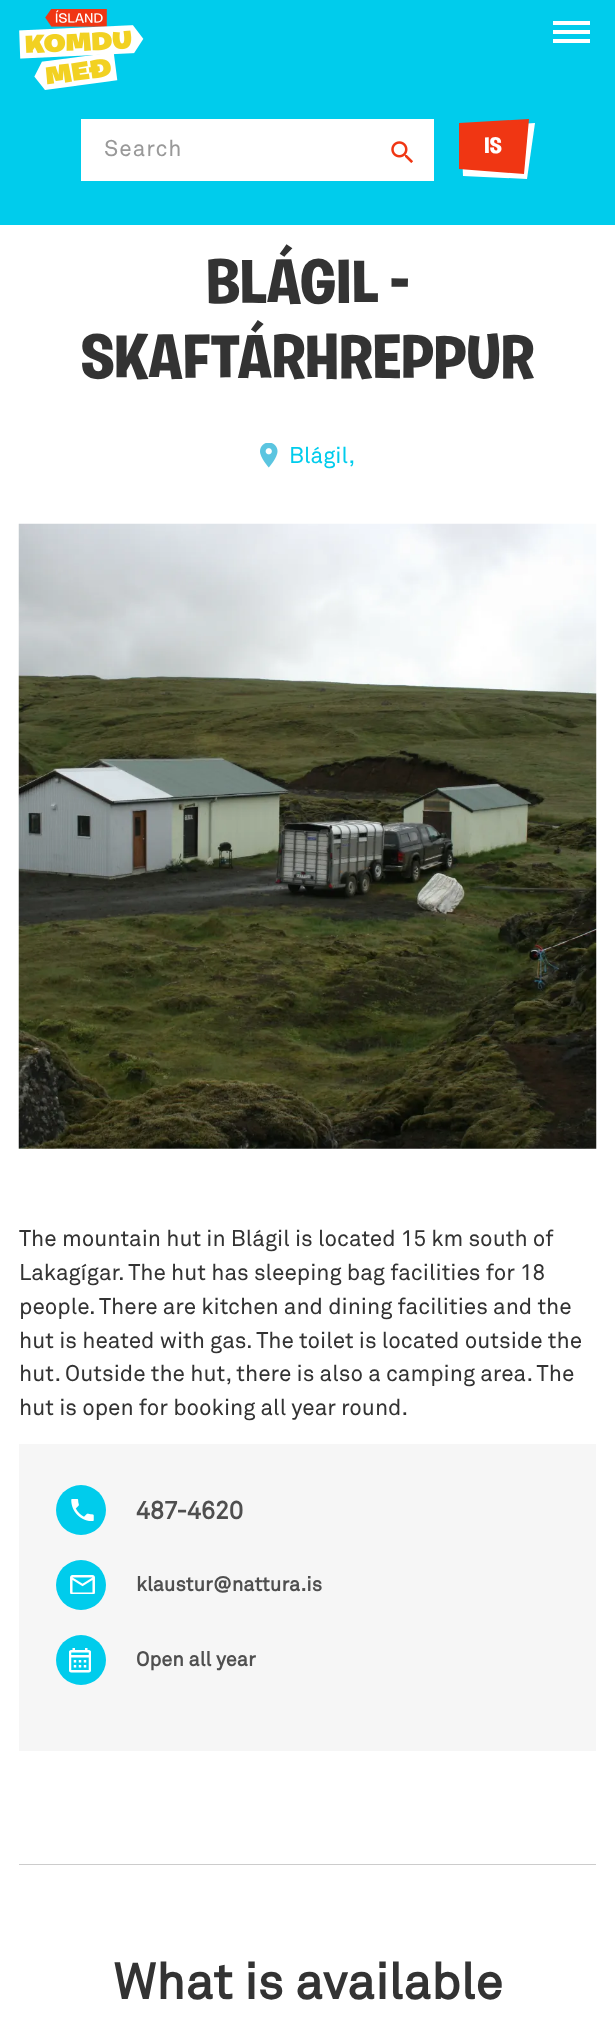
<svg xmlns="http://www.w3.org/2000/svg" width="615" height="2024">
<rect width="100%" height="100%" fill="#fff"/>
<rect width="615" height="225" fill="#00ccec"/>
<image x="19" y="9" width="125" height="81" href="media/1.png"/>
<rect x="553" y="21" width="37" height="4" fill="#fff"/>
<rect x="553" y="30" width="37" height="4" fill="#fff"/>
<rect x="553" y="39" width="37" height="4" fill="#fff"/>
<rect x="81" y="119" width="353" height="62" fill="#fff"/>
<text x="104" y="156" style="font-family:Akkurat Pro;font-size:22.5px;letter-spacing:1px;fill:#999">Search</text>
<image x="391" y="141" width="22" height="22" href="media/2.png"/>
<path d="M461 128l74-5l-8 56l-64-3z" fill="#fff"/>
<path d="M459 123l70-4l-5 55l-65-5z" fill="#f03613"/>
<text x="484" y="153" style="font-family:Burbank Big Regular;font-size:22.5px;font-weight:bold;fill:#fff">IS</text>
<text x="206" y="303" style="font-family:Burbank Big Regular;font-size:62.5px;font-weight:bold;fill:#333">BLÁGIL -</text>
<text x="81" y="378" style="font-family:Burbank Big Regular;font-size:62.5px;font-weight:bold;fill:#333">SKAFTÁRHREPPUR</text>
<image x="260" y="443" width="18" height="25" href="media/3.png"/>
<text x="289" y="463" style="font-family:Akkurat Pro;font-size:22.5px;fill:#00ccec">Blágil,</text>
<image x="18" y="523" width="579" height="626" href="media/4.png"/>
<text x="19" y="1246" style="font-family:Akkurat Pro;font-size:22.5px;fill:#333">The mountain hut in Blágil is located 15 km south of</text>
<text x="19" y="1280" style="font-family:Akkurat Pro;font-size:22.5px;fill:#333">Lakagígar. The hut has sleeping bag facilities for 18</text>
<text x="19" y="1314" style="font-family:Akkurat Pro;font-size:22.5px;fill:#333">people.</text>
<text x="99" y="1314" style="font-family:Akkurat Pro;font-size:22.5px;fill:#333">There are kitchen and dining facilities and the</text>
<text x="19" y="1348" style="font-family:Akkurat Pro;font-size:22.5px;fill:#333">hut is heated with gas. The toilet is located outside the</text>
<text x="19" y="1381" style="font-family:Akkurat Pro;font-size:22.5px;fill:#333">hut. Outside the hut, there is also a camping area. The</text>
<text x="19" y="1415" style="font-family:Akkurat Pro;font-size:22.5px;fill:#333">hut is open for booking all year round.</text>
<rect x="19" y="1444" width="577" height="307" fill="#f6f6f6"/>
<circle cx="81" cy="1510" r="25" fill="#00ccec"/>
<image x="71" y="1499" width="23" height="22" href="media/5.png"/>
<text x="136" y="1519" style="font-family:Akkurat Pro;font-size:25px;font-weight:bold;fill:#4f4f4f">487-4620</text>
<circle cx="81" cy="1585" r="25" fill="#00ccec"/>
<image x="70" y="1575" width="25" height="19" href="media/6.png"/>
<text x="136" y="1591" style="font-family:Akkurat Pro;font-size:20px;font-weight:bold;fill:#4f4f4f">klaustur@nattura.is</text>
<circle cx="81" cy="1660" r="25" fill="#00ccec"/>
<image x="69" y="1648" width="22" height="25" href="media/7.png"/>
<text x="136" y="1666" style="font-family:Akkurat Pro;font-size:20px;font-weight:bold;fill:#4f4f4f">Open all year</text>
<rect x="19" y="1864" width="577" height="1" fill="#ccc"/>
<text x="113" y="1999" style="font-family:Akkurat Pro;font-size:50px;font-weight:bold;fill:#333">What is available</text>
</svg>
